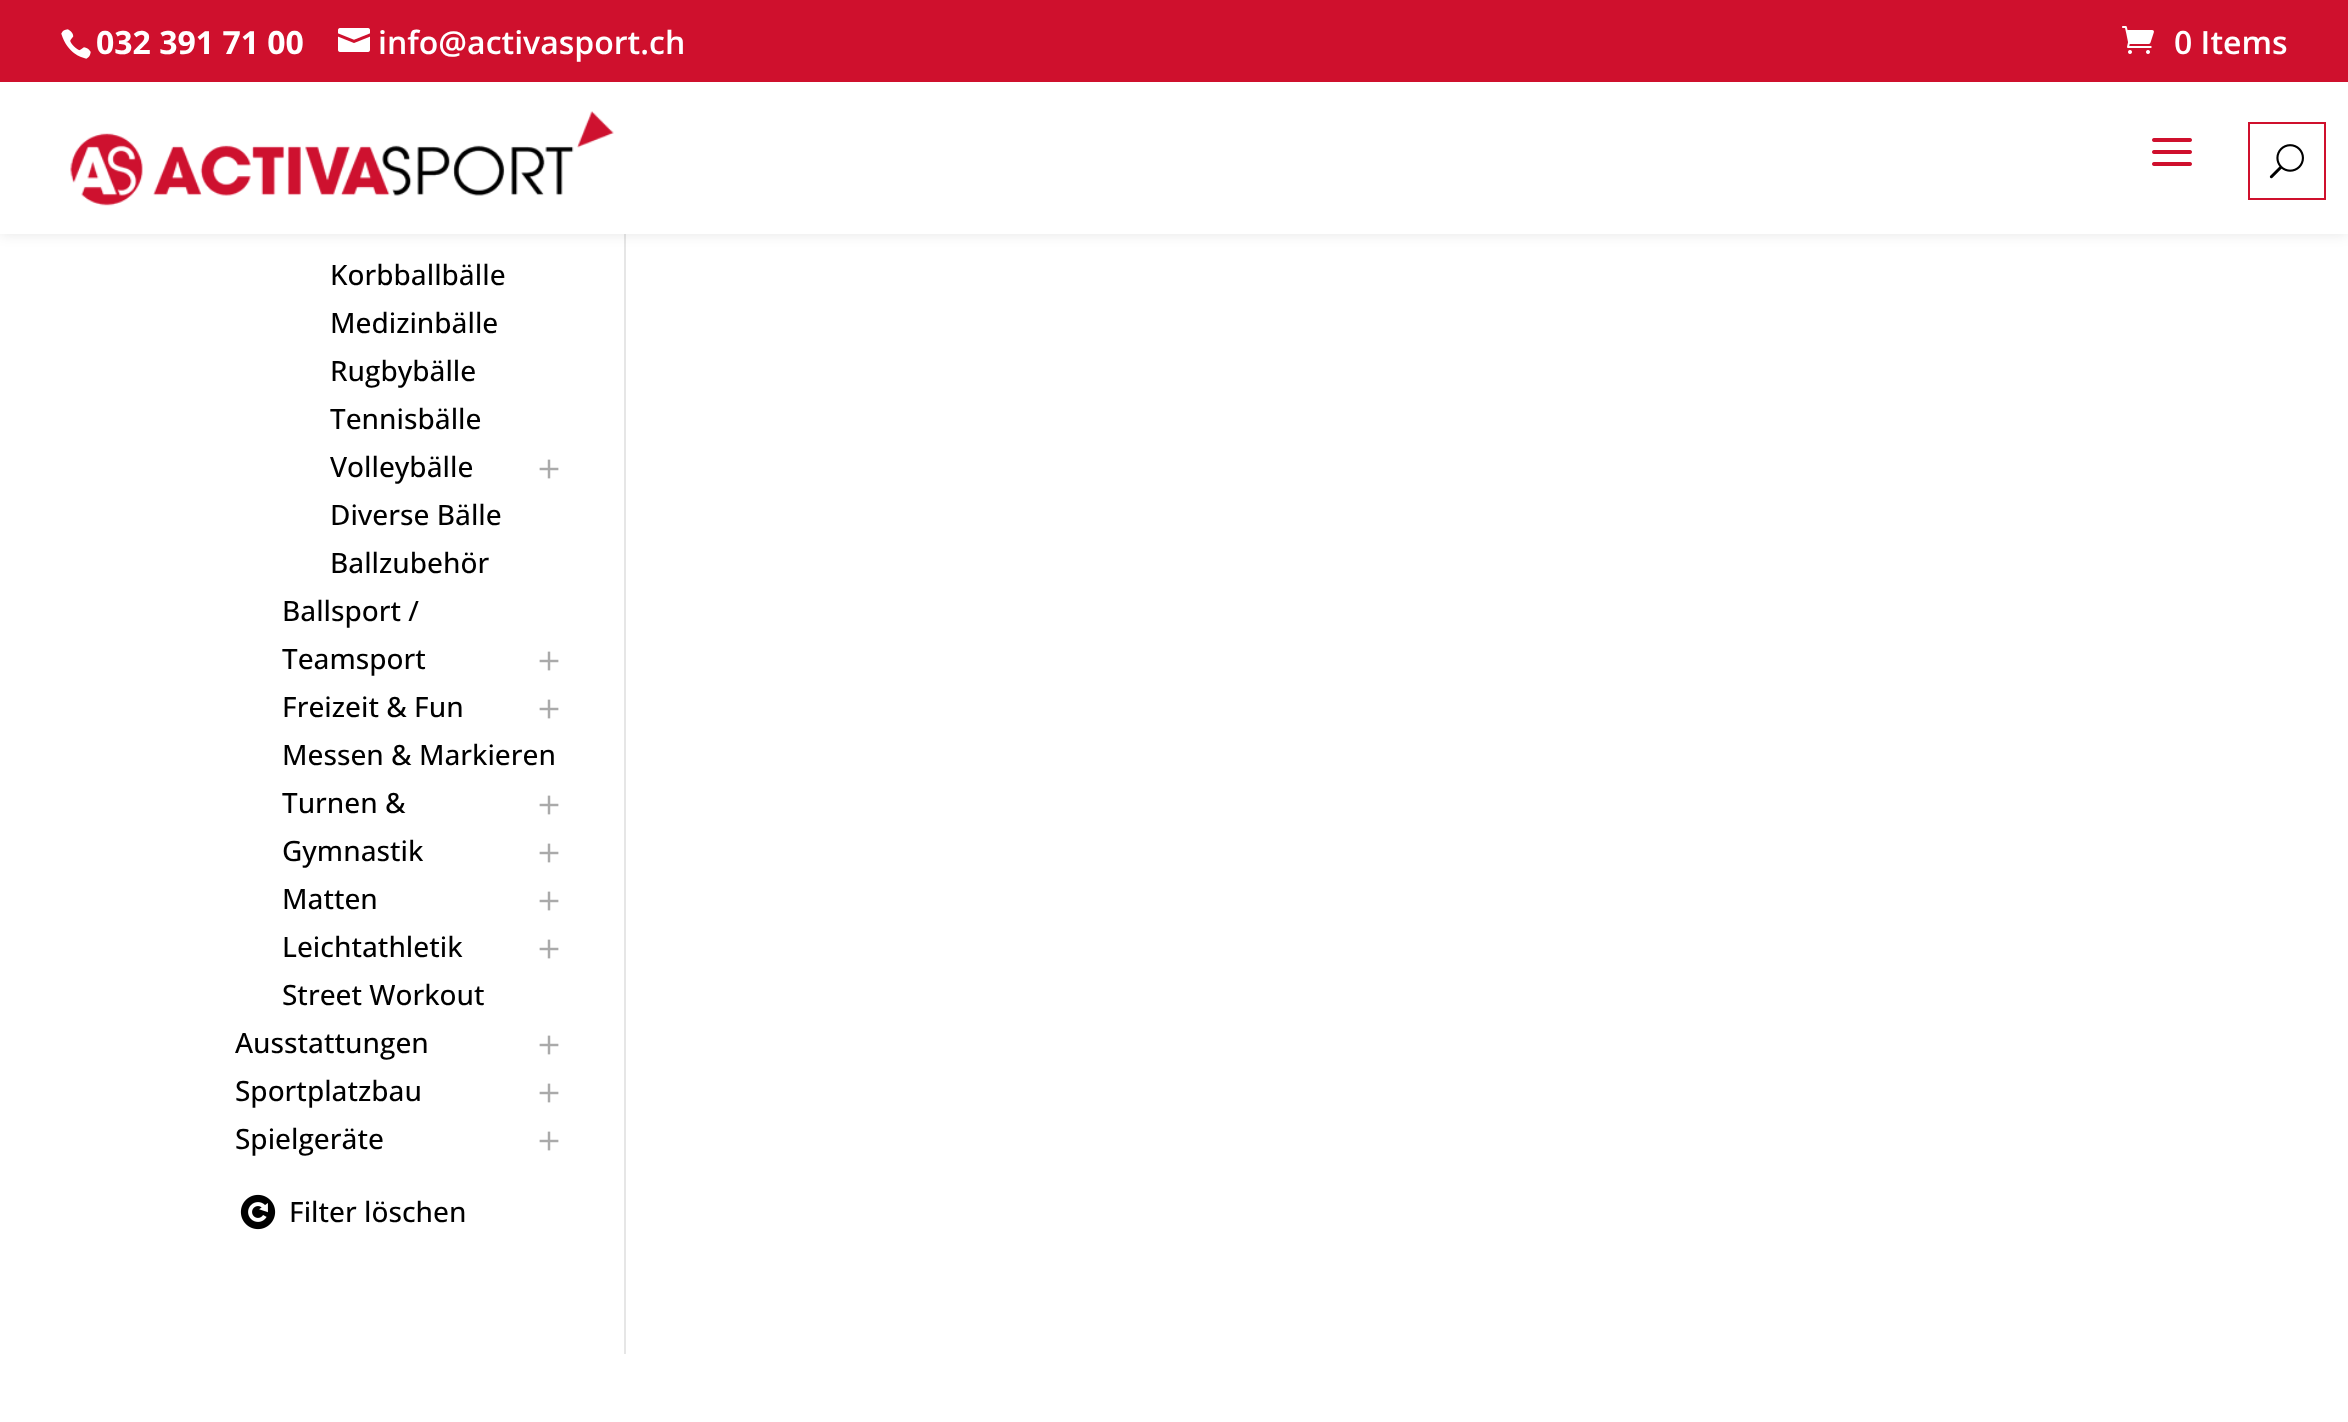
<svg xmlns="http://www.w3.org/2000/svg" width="2348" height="1422">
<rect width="100%" height="100%" fill="#fff"/>
<rect x="624" y="234" width="2" height="1120" fill="#e6e6e6"/>
<rect y="82" width="2348" height="152" fill="#0000001a" filter="blur(7px)"/>
<rect width="2348" height="82" fill="#cf102d"/>
<image x="61" y="29" width="30" height="30" href="media/1.png"/>
<text x="96" y="54" style="font-family:Open Sans;font-size:32px;font-weight:bold;fill:#fff">032 391 71 00</text>
<image x="338" y="28" width="32" height="24" href="media/2.png"/>
<text x="378" y="54" style="font-family:Open Sans;font-size:32px;font-weight:600;fill:#fff">info@activasport.ch</text>
<image x="2122" y="26" width="32" height="28" href="media/3.png"/>
<text x="2174" y="54" style="font-family:Open Sans;font-size:32px;font-weight:600;fill:#fff">0 Items</text>
<rect y="82" width="2348" height="152" fill="#fff"/>
<image x="70" y="111" width="544" height="95" href="media/4.png"/>
<image x="2152" y="138" width="40" height="28" href="media/5.png"/>
<rect x="2249" y="123" width="76" height="76" fill="none" stroke="#cf102d" stroke-width="2"/>
<image x="2269" y="144" width="35" height="35" href="media/6.png"/>
<text x="330" y="285" style="font-family:Open Sans;font-size:28px;font-weight:500;fill:#000">Korbballbälle</text>
<text x="330" y="333" style="font-family:Open Sans;font-size:28px;font-weight:500;fill:#000">Medizinbälle</text>
<text x="330" y="381" style="font-family:Open Sans;font-size:28px;font-weight:500;fill:#000">Rugbybälle</text>
<text x="330" y="429" style="font-family:Open Sans;font-size:28px;font-weight:500;fill:#000">Tennisbälle</text>
<text x="330" y="477" style="font-family:Open Sans;font-size:28px;font-weight:500;fill:#000">Volleybälle</text>
<image x="539" y="459" width="20" height="20" href="media/7.png"/>
<text x="330" y="525" style="font-family:Open Sans;font-size:28px;font-weight:500;fill:#000">Diverse Bälle</text>
<text x="330" y="573" style="font-family:Open Sans;font-size:28px;font-weight:500;fill:#000">Ballzubehör</text>
<text x="282" y="621" style="font-family:Open Sans;font-size:28px;font-weight:500;fill:#000">Ballsport /</text>
<text x="282" y="669" style="font-family:Open Sans;font-size:28px;font-weight:500;fill:#000">Teamsport</text>
<image x="539" y="651" width="20" height="20" href="media/7.png"/>
<text x="282" y="717" style="font-family:Open Sans;font-size:28px;font-weight:500;fill:#000">Freizeit &amp; Fun</text>
<image x="539" y="699" width="20" height="20" href="media/7.png"/>
<text x="282" y="765" style="font-family:Open Sans;font-size:28px;font-weight:500;fill:#000">Messen &amp; Markieren</text>
<image x="539" y="795" width="20" height="20" href="media/7.png"/>
<text x="282" y="813" style="font-family:Open Sans;font-size:28px;font-weight:500;fill:#000">Turnen &amp;</text>
<text x="282" y="861" style="font-family:Open Sans;font-size:28px;font-weight:500;fill:#000">Gymnastik</text>
<image x="539" y="843" width="20" height="20" href="media/7.png"/>
<text x="282" y="909" style="font-family:Open Sans;font-size:28px;font-weight:500;fill:#000">Matten</text>
<image x="539" y="891" width="20" height="20" href="media/7.png"/>
<text x="282" y="957" style="font-family:Open Sans;font-size:28px;font-weight:500;fill:#000">Leichtathletik</text>
<image x="539" y="939" width="20" height="20" href="media/7.png"/>
<text x="282" y="1005" style="font-family:Open Sans;font-size:28px;font-weight:500;fill:#000">Street Workout</text>
<text x="235" y="1053" style="font-family:Open Sans;font-size:28px;font-weight:500;fill:#000">Ausstattungen</text>
<image x="539" y="1035" width="20" height="20" href="media/7.png"/>
<text x="235" y="1101" style="font-family:Open Sans;font-size:28px;font-weight:500;fill:#000">Sportplatzbau</text>
<image x="539" y="1083" width="20" height="20" href="media/7.png"/>
<text x="235" y="1149" style="font-family:Open Sans;font-size:28px;font-weight:500;fill:#000">Spielgeräte</text>
<image x="539" y="1131" width="20" height="20" href="media/7.png"/>
<image x="240" y="1194" width="36" height="36" href="media/8.png"/>
<text x="289" y="1222" style="font-family:Open Sans;font-size:28px;font-weight:500;fill:#000">Filter löschen</text>
</svg>
